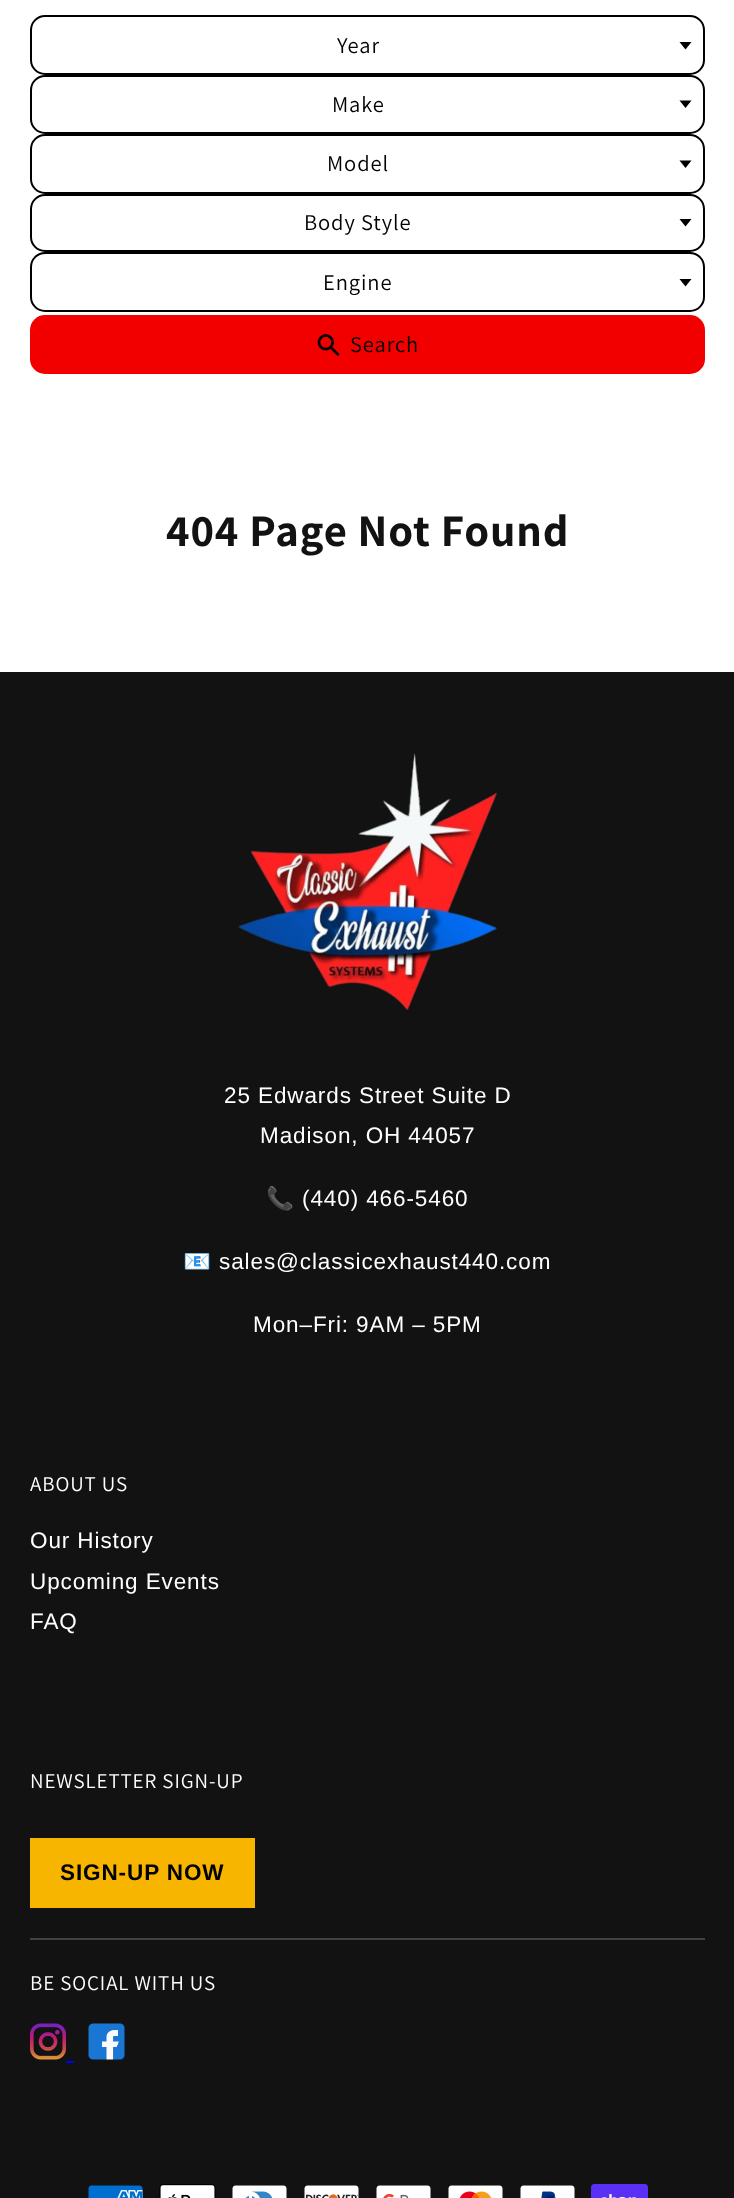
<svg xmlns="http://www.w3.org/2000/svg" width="734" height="2198">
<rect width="100%" height="100%" fill="#fff"/>
<rect x="31" y="16" width="673" height="58" rx="14" fill="none" stroke="#000" stroke-width="2"/>
<text x="337" y="53" style="font-family:Assistant;font-size:22.5px;letter-spacing:0.9px;fill:#000">Year</text>
<path d="M679.5 42h12l-6 7.5z" fill="#000"/>
<rect x="31" y="76" width="673" height="57" rx="14" fill="none" stroke="#000" stroke-width="2"/>
<text x="332" y="112" style="font-family:Assistant;font-size:22.5px;letter-spacing:0.9px;fill:#000">Make</text>
<path d="M679.5 100.5h12l-6 7.5z" fill="#000"/>
<rect x="31" y="135" width="673" height="58" rx="14" fill="none" stroke="#000" stroke-width="2"/>
<text x="327" y="171" style="font-family:Assistant;font-size:22.5px;letter-spacing:0.9px;fill:#000">Model</text>
<path d="M679.5 160.5h12l-6 7.5z" fill="#000"/>
<rect x="31" y="195" width="673" height="56" rx="14" fill="none" stroke="#000" stroke-width="2"/>
<text x="304" y="230" style="font-family:Assistant;font-size:22.5px;letter-spacing:0.9px;fill:#000">Body Style</text>
<path d="M679.5 219h12l-6 7.5z" fill="#000"/>
<rect x="31" y="253" width="673" height="58" rx="14" fill="none" stroke="#000" stroke-width="2"/>
<text x="323" y="290" style="font-family:Assistant;font-size:22.5px;letter-spacing:0.9px;fill:#000">Engine</text>
<path d="M679.5 279h12l-6 7.5z" fill="#000"/>
<rect x="30" y="315" width="675" height="59" rx="15" fill="#f20000"/>
<image x="317" y="334" width="23" height="22" href="media/1.png"/>
<text x="350" y="352" style="font-family:Assistant;font-size:22.5px;letter-spacing:0.9px;fill:#000">Search</text>
<text x="166" y="546" style="font-family:Assistant;font-size:45px;font-weight:bold;letter-spacing:0.9px;fill:#121212">404 Page Not Found</text>
<rect y="672" width="734" height="1526" fill="#121212"/>
<image x="238" y="753" width="260" height="258" href="media/2.png"/>
<text x="224" y="1103" style="font-family:Liberation Sans;font-size:22.5px;letter-spacing:0.9px;fill:#fff">25 Edwards Street Suite D</text>
<text x="260" y="1143" style="font-family:Liberation Sans;font-size:22.5px;letter-spacing:0.9px;fill:#fff">Madison, OH 44057</text>
<text x="266" y="1206" style="font-family:Noto Color Emoji;font-size:22.5px;letter-spacing:0.9px;fill:#fff">📞</text>
<text x="302" y="1206" style="font-family:Liberation Sans;font-size:22.5px;letter-spacing:0.9px;fill:#fff">(440) 466-5460</text>
<text x="183" y="1269" style="font-family:Noto Color Emoji;font-size:22.5px;letter-spacing:0.9px;fill:#fff">📧</text>
<text x="219" y="1269" style="font-family:Liberation Sans;font-size:22.5px;letter-spacing:0.9px;fill:#fff">sales@classicexhaust440.com</text>
<text x="253" y="1332" style="font-family:Liberation Sans;font-size:22.5px;letter-spacing:0.9px;fill:#fff">Mon–Fri: 9AM – 5PM</text>
<text x="30" y="1491" style="font-family:Assistant;font-size:21px;letter-spacing:0.9px;fill:#fff">ABOUT US</text>
<text x="30" y="1548" style="font-family:Liberation Sans;font-size:22.5px;letter-spacing:0.9px;fill:#fff">Our History</text>
<text x="30" y="1589" style="font-family:Liberation Sans;font-size:22.5px;letter-spacing:0.9px;fill:#fff">Upcoming Events</text>
<text x="30" y="1629" style="font-family:Liberation Sans;font-size:22.5px;letter-spacing:0.9px;fill:#fff">FAQ</text>
<text x="30" y="1788" style="font-family:Assistant;font-size:21px;letter-spacing:0.9px;fill:#fff">NEWSLETTER SIGN-UP</text>
<rect x="30" y="1838" width="225" height="70" fill="#f7b500"/>
<text x="60" y="1880" style="font-family:Liberation Sans;font-size:22.5px;font-weight:bold;letter-spacing:0.9px;fill:#000">SIGN-UP NOW</text>
<rect x="30" y="1938" width="675" height="2" fill="#414141"/>
<text x="30" y="1990" style="font-family:Assistant;font-size:21px;letter-spacing:0.9px;fill:#fff">BE SOCIAL WITH US</text>
<image x="30" y="2023" width="36" height="37" href="media/3.png"/>
<image x="88" y="2023" width="37" height="37" href="media/4.png"/>
<rect x="66" y="2061" width="8" height="2" fill="#00e"/>
<image x="88" y="2185" width="55" height="13" href="media/5.png"/>
<image x="159" y="2184" width="57" height="14" href="media/6.png"/>
<image x="232" y="2185" width="55" height="13" href="media/7.png"/>
<image x="304" y="2185" width="55" height="13" href="media/8.png"/>
<image x="376" y="2185" width="55" height="13" href="media/9.png"/>
<image x="448" y="2185" width="55" height="13" href="media/10.png"/>
<image x="520" y="2185" width="55" height="13" href="media/11.png"/>
<image x="591" y="2184" width="57" height="14" href="media/12.png"/>
</svg>
